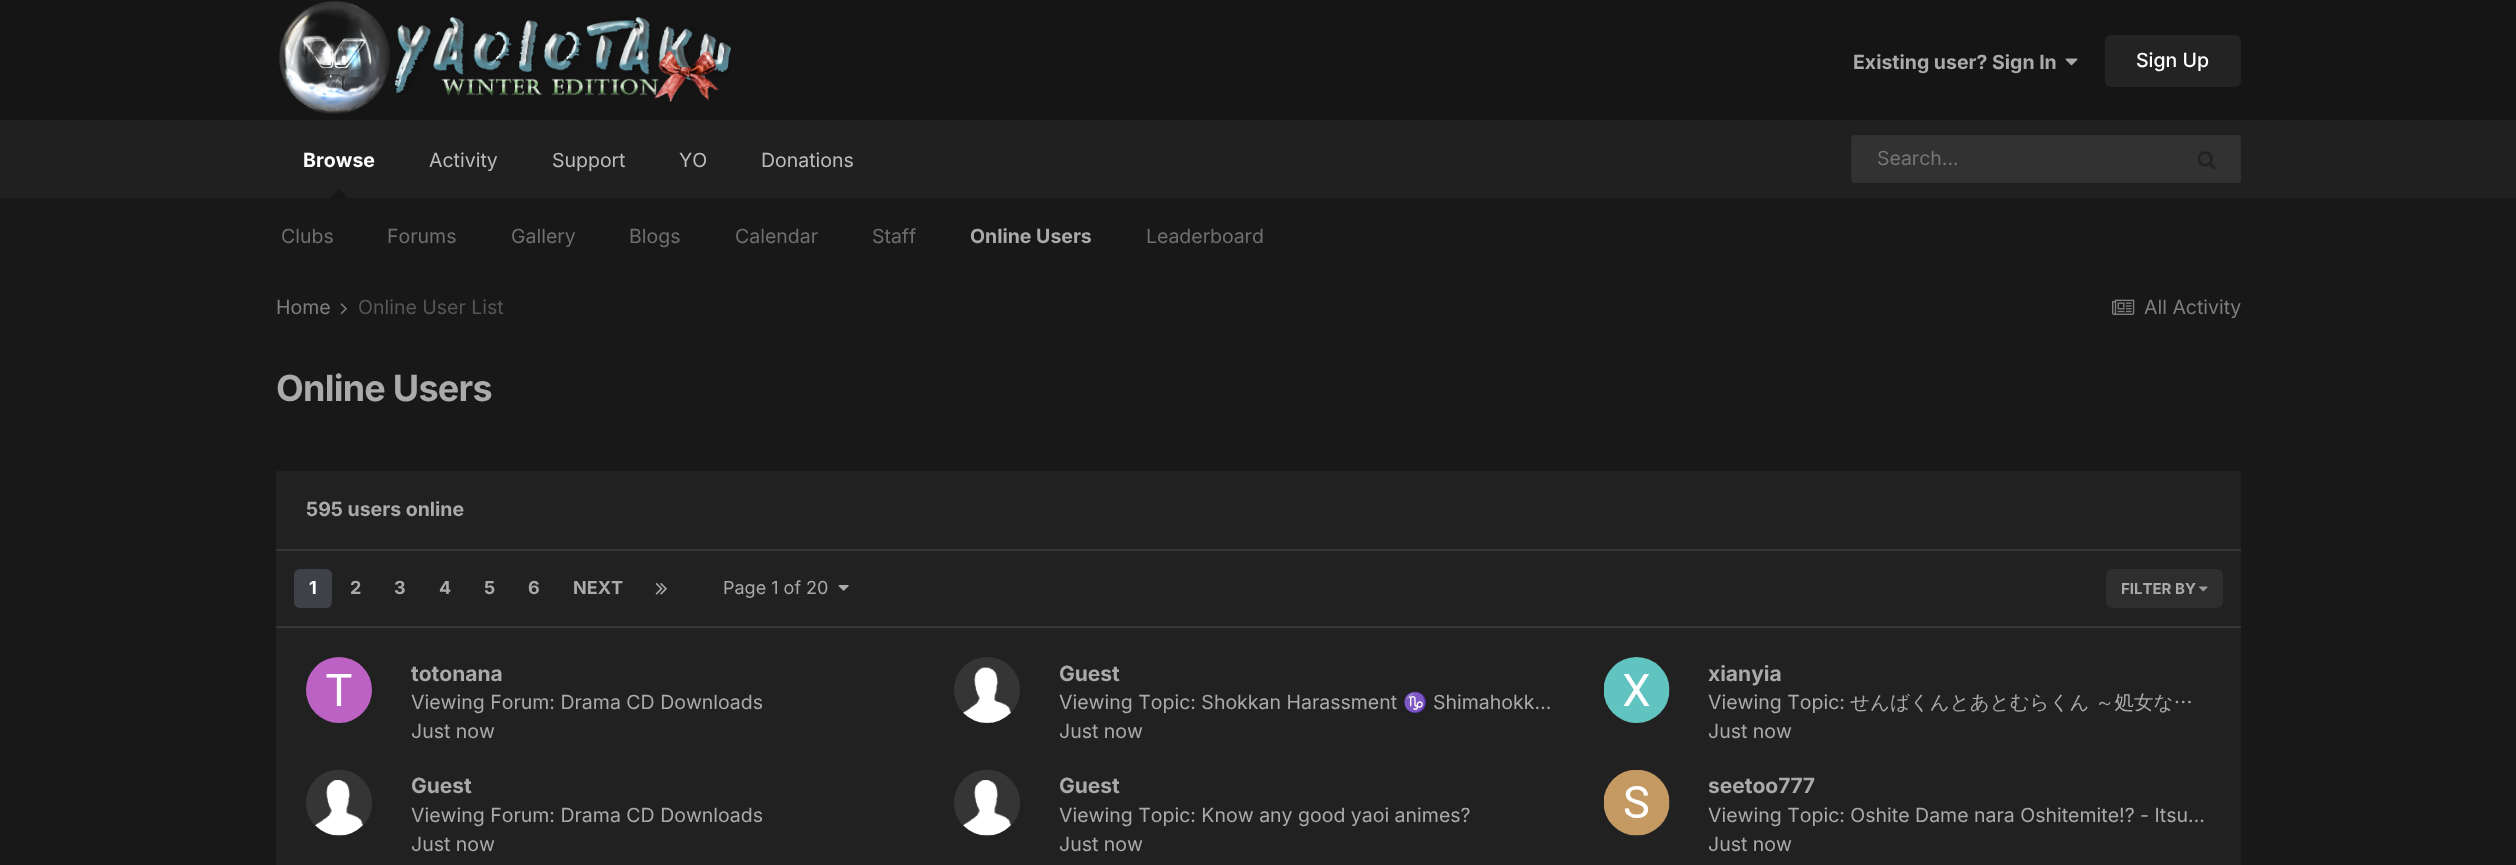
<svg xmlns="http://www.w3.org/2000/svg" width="2516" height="865">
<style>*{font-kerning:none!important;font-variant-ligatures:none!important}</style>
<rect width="100%" height="100%" fill="#181818"/>
<rect width="2516" height="120" fill="#151515"/>
<image x="279" y="1" width="452" height="113" href="media/1.png"/>
<text x="1853" y="69" style="font-family:Inter;font-size:19.5px;font-weight:bold;fill:#aaa">Existing user? Sign In</text>
<image x="2065" y="58" width="13" height="8" href="media/2.png"/>
<rect x="2105" y="35" width="136" height="52" rx="6" fill="#232323"/>
<text x="2136" y="67" style="font-family:Inter;font-size:19.5px;font-weight:500;fill:#fff">Sign Up</text>
<rect y="120" width="2516" height="78" fill="#202020"/>
<text x="303" y="167" style="font-family:Inter;font-size:19.5px;font-weight:bold;fill:#fff">Browse</text>
<path d="M348 198h-18l9-9z" fill="#161616"/>
<text x="281" y="243" style="font-family:Inter;font-size:19.5px;fill:#6f6f6f">Clubs</text>
<text x="387" y="243" style="font-family:Inter;font-size:19.5px;fill:#6f6f6f">Forums</text>
<text x="511" y="243" style="font-family:Inter;font-size:19.5px;fill:#6f6f6f">Gallery</text>
<text x="629" y="243" style="font-family:Inter;font-size:19.5px;fill:#6f6f6f">Blogs</text>
<text x="735" y="243" style="font-family:Inter;font-size:19.5px;fill:#6f6f6f">Calendar</text>
<text x="872" y="243" style="font-family:Inter;font-size:19.5px;fill:#6f6f6f">Staff</text>
<text x="970" y="243" style="font-family:Inter;font-size:19.5px;font-weight:bold;fill:#aaa">Online Users</text>
<text x="1146" y="243" style="font-family:Inter;font-size:19.5px;fill:#6f6f6f">Leaderboard</text>
<text x="429" y="167" style="font-family:Inter;font-size:19.5px;fill:#bcbcbc">Activity</text>
<text x="552" y="167" style="font-family:Inter;font-size:19.5px;fill:#bcbcbc">Support</text>
<text x="679" y="167" style="font-family:Inter;font-size:19.5px;fill:#bcbcbc">YO</text>
<text x="761" y="167" style="font-family:Inter;font-size:19.5px;fill:#bcbcbc">Donations</text>
<rect x="1852" y="136" width="388" height="46" rx="2" fill="#323232" stroke="#303030" stroke-width="2"/>
<text x="1877" y="165" style="font-family:Inter;font-size:19.5px;fill:#757575">Search...</text>
<image x="2197" y="151" width="19" height="18" href="media/3.png"/>
<text x="276" y="314" style="font-family:Inter;font-size:19.5px;fill:#7e7e7e">Home</text>
<image x="340" y="303" width="7" height="12" href="media/4.png"/>
<text x="358" y="314" style="font-family:Inter;font-size:19.5px;fill:#565656">Online User List</text>
<image x="2112" y="299" width="23" height="16" href="media/5.png"/>
<text x="2144" y="314" style="font-family:Inter;font-size:19.5px;fill:#7e7e7e">All Activity</text>
<text x="276" y="401" style="font-family:Inter;font-size:36px;font-weight:bold;letter-spacing:-0.75px;fill:#aaa">Online Users</text>
<rect x="276" y="471" width="1965" height="394" fill="#212121"/>
<rect x="276" y="549" width="1965" height="2" fill="#363636"/>
<text x="306" y="516" style="font-family:Inter;font-size:19.5px;font-weight:bold;fill:#aaa">595 users online</text>
<rect x="276" y="626" width="1965" height="2" fill="#363636"/>
<rect x="294" y="569" width="38" height="39" rx="6" fill="#3e4148"/>
<text x="309" y="594" style="font-family:Inter;font-size:18px;font-weight:bold;fill:#fff">1</text>
<text x="350" y="594" style="font-family:Inter;font-size:18px;font-weight:bold;fill:#aaa">2</text>
<text x="394" y="594" style="font-family:Inter;font-size:18px;font-weight:bold;fill:#aaa">3</text>
<text x="439" y="594" style="font-family:Inter;font-size:18px;font-weight:bold;fill:#aaa">4</text>
<text x="484" y="594" style="font-family:Inter;font-size:18px;font-weight:bold;fill:#aaa">5</text>
<text x="528" y="594" style="font-family:Inter;font-size:18px;font-weight:bold;fill:#aaa">6</text>
<text x="573" y="594" style="font-family:Inter;font-size:18px;font-weight:bold;fill:#aaa">NEXT</text>
<image x="655" y="583" width="12" height="12" href="media/6.png"/>
<text x="723" y="594" style="font-family:Inter;font-size:18px;fill:#aaa">Page 1 of 20</text>
<image x="838" y="585" width="11" height="6" href="media/7.png"/>
<rect x="2106" y="569" width="117" height="39" rx="6" fill="#323232"/>
<image x="2199" y="586" width="9" height="6" href="media/8.png"/>
<rect x="2106" y="569" width="117" height="39" rx="6" fill="#1212121a"/>
<text x="2121" y="594" style="font-family:Inter;font-size:15px;font-weight:bold;fill:#aaa">FILTER BY</text>
<circle cx="339" cy="690" r="33" fill="#323232"/>
<image x="306" y="657" width="66" height="66" href="media/9.png"/>
<text x="411" y="681" style="font-family:Inter;font-size:21px;font-weight:bold;fill:#aaa">totonana</text>
<text x="411" y="709" style="font-family:Inter;font-size:19.5px;fill:#aaa">Viewing Forum: Drama CD Downloads</text>
<text x="411" y="738" style="font-family:Inter;font-size:19.5px;fill:#aaa">Just now</text>
<circle cx="987" cy="690" r="33" fill="#323232"/>
<image x="954" y="657" width="66" height="66" href="media/10.png"/>
<text x="1059" y="681" style="font-family:Inter;font-size:21px;font-weight:bold;fill:#aaa">Guest</text>
<text x="1059" y="709" style="font-family:Inter;font-size:19.5px;fill:#aaa">Viewing Topic: Shokkan Harassment</text>
<text x="1403" y="709" style="font-family:Noto Color Emoji;font-size:19.5px;fill:#aaa">♑</text>
<text x="1433" y="709" style="font-family:Inter;font-size:19.5px;fill:#aaa">Shimahokk…</text>
<text x="1059" y="738" style="font-family:Inter;font-size:19.5px;fill:#aaa">Just now</text>
<circle cx="1637" cy="690" r="33" fill="#323232"/>
<image x="1604" y="657" width="66" height="66" href="media/11.png"/>
<text x="1708" y="681" style="font-family:Inter;font-size:21px;font-weight:bold;fill:#aaa">xianyia</text>
<text x="1708" y="709" style="font-family:Inter;font-size:19.5px;fill:#aaa">Viewing Topic:</text>
<text x="1850" y="709" style="font-family:WenQuanYi Zen Hei;font-size:19.5px;font-weight:500;fill:#aaa">せんばくんとあとむらくん</text>
<text x="2095" y="709" style="font-family:WenQuanYi Zen Hei;font-size:19.5px;font-weight:500;fill:#aaa">～処女な…</text>
<text x="1708" y="738" style="font-family:Inter;font-size:19.5px;fill:#aaa">Just now</text>
<circle cx="339" cy="803" r="33" fill="#323232"/>
<image x="306" y="769" width="66" height="67" href="media/12.png"/>
<text x="411" y="793" style="font-family:Inter;font-size:21px;font-weight:bold;fill:#aaa">Guest</text>
<text x="411" y="822" style="font-family:Inter;font-size:19.5px;fill:#aaa">Viewing Forum: Drama CD Downloads</text>
<text x="411" y="851" style="font-family:Inter;font-size:19.5px;fill:#aaa">Just now</text>
<circle cx="987" cy="803" r="33" fill="#323232"/>
<image x="954" y="769" width="66" height="67" href="media/13.png"/>
<text x="1059" y="793" style="font-family:Inter;font-size:21px;font-weight:bold;fill:#aaa">Guest</text>
<text x="1059" y="822" style="font-family:Inter;font-size:19.5px;fill:#aaa">Viewing Topic: Know any good yaoi animes?</text>
<text x="1059" y="851" style="font-family:Inter;font-size:19.5px;fill:#aaa">Just now</text>
<circle cx="1637" cy="803" r="33" fill="#323232"/>
<image x="1604" y="770" width="66" height="66" href="media/14.png"/>
<text x="1708" y="793" style="font-family:Inter;font-size:21px;font-weight:bold;fill:#aaa">seetoo777</text>
<text x="1708" y="822" style="font-family:Inter;font-size:19.5px;fill:#aaa">Viewing Topic: Oshite Dame nara Oshitemite!? - Itsu…</text>
<text x="1708" y="851" style="font-family:Inter;font-size:19.5px;fill:#aaa">Just now</text>
</svg>
